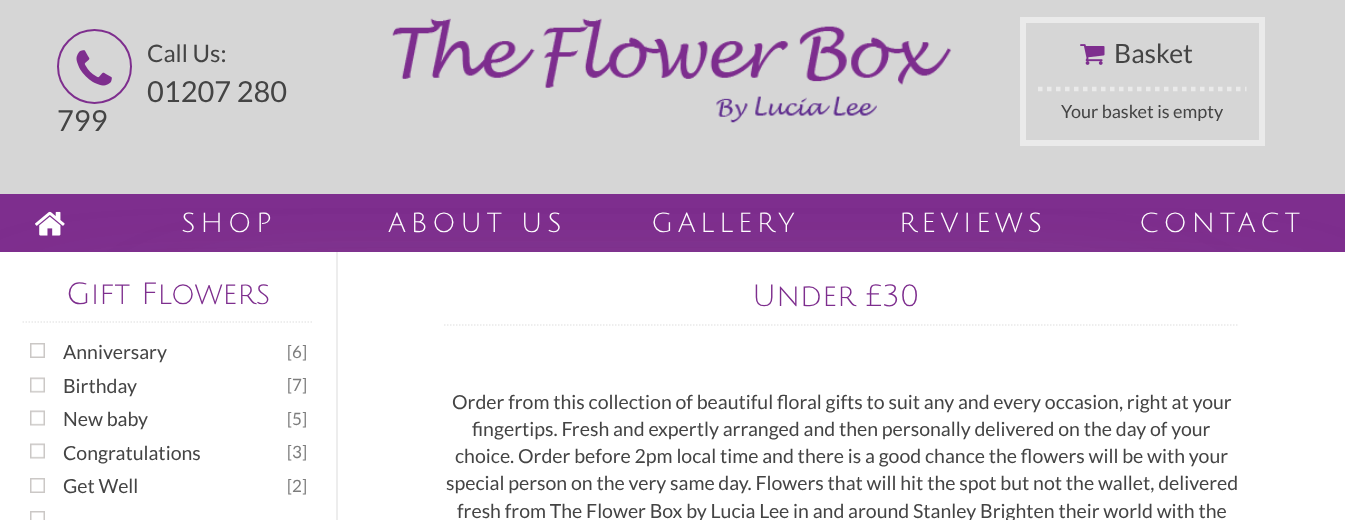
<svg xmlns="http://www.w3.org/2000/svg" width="1345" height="520">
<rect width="100%" height="100%" fill="#7e2e8e"/>
<rect x="210" y="387" width="1076" height="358" fill="#999" filter="blur(75px)"/>
<rect x="60" y="387" width="1076" height="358" fill="#999" filter="blur(75px)"/>
<rect width="1345" height="194" fill="#d6d6d6"/>
<circle cx="94.5" cy="66.5" r="36.5" fill="none" stroke="#7e2e8e" stroke-width="2"/>
<image x="76" y="50" width="36" height="36" href="media/1.png"/>
<text x="147" y="62" style="font-family:Lato;font-size:24px;fill:#444">Call Us:</text>
<text x="147" y="102" style="font-family:Lato;font-size:29px;fill:#444">01207 280</text>
<text x="57" y="131" style="font-family:Lato;font-size:29px;fill:#444">799</text>
<image x="392" y="18" width="560" height="105" href="media/2.png"/>
<rect x="1023" y="20" width="239" height="123" fill="none" stroke="#eaeaea" stroke-width="6"/>
<image x="1080" y="44" width="25" height="21" href="media/3.png"/>
<text x="1114" y="63" style="font-family:Lato;font-size:26.5px;fill:#444">Basket</text>
<path d="M1038 89h208.5" fill="none" stroke="#eaeaea" stroke-width="4.5" stroke-dasharray="4.5 4.5"/>
<text x="1061" y="118" style="font-family:Lato;font-size:18px;fill:#444">Your basket is empty</text>
<image x="35" y="211" width="30" height="25" href="media/4.png"/>
<text x="181" y="232" style="font-family:Julius Sans One;font-size:27px;letter-spacing:4.5px;fill:#fff">SHOP</text>
<text x="388" y="232" style="font-family:Julius Sans One;font-size:27px;letter-spacing:4.5px;fill:#fff">ABOUT US</text>
<text x="651" y="232" style="font-family:Julius Sans One;font-size:27px;letter-spacing:4.5px;fill:#fff">GALLERY</text>
<text x="899" y="232" style="font-family:Julius Sans One;font-size:27px;letter-spacing:4.5px;fill:#fff">REVIEWS</text>
<text x="1139" y="232" style="font-family:Julius Sans One;font-size:27px;letter-spacing:4.5px;fill:#fff">CONTACT</text>
<rect y="252" width="1345" height="268" fill="#fff"/>
<path d="M22.5 322h291" fill="none" stroke="#e9e9e9" stroke-width="1.5" stroke-dasharray="1.5 1.5"/>
<text x="66" y="304" style="font-family:Julius Sans One;font-size:30px;fill:#7e2e8e">Gift Flowers</text>
<image x="30" y="343" width="15" height="15" href="media/5.png"/>
<text x="63" y="359" style="font-family:Lato;font-size:19.5px;fill:#444">Anniversary</text>
<text x="287" y="358" style="font-family:Lato;font-size:17px;fill:#7d7d7d">[6]</text>
<image x="30" y="377" width="15" height="16" href="media/6.png"/>
<text x="63" y="393" style="font-family:Lato;font-size:19.5px;fill:#444">Birthday</text>
<text x="287" y="391" style="font-family:Lato;font-size:17px;fill:#7d7d7d">[7]</text>
<image x="30" y="410" width="15" height="16" href="media/6.png"/>
<text x="63" y="426" style="font-family:Lato;font-size:19.5px;fill:#444">New baby</text>
<text x="287" y="425" style="font-family:Lato;font-size:17px;fill:#7d7d7d">[5]</text>
<image x="30" y="443" width="15" height="16" href="media/6.png"/>
<text x="63" y="460" style="font-family:Lato;font-size:19.5px;fill:#444">Congratulations</text>
<text x="287" y="458" style="font-family:Lato;font-size:17px;fill:#7d7d7d">[3]</text>
<image x="30" y="478" width="15" height="15" href="media/5.png"/>
<text x="63" y="493" style="font-family:Lato;font-size:19.5px;fill:#444">Get Well</text>
<text x="287" y="492" style="font-family:Lato;font-size:17px;fill:#7d7d7d">[2]</text>
<image x="30" y="511" width="15" height="9" href="media/7.png"/>
<rect x="336" y="252" width="2" height="268" fill="#ededed"/>
<path d="M444 325h795" fill="none" stroke="#e9e9e9" stroke-width="1.5" stroke-dasharray="1.5 1.5"/>
<text x="752" y="306" style="font-family:Julius Sans One;font-size:30px;fill:#7e2e8e">Under £30</text>
<text x="452" y="409" style="font-family:Lato;font-size:19.5px;fill:#444">Order from this collection of beautiful floral gifts to suit any and every occasion, right at your</text>
<text x="472" y="436" style="font-family:Lato;font-size:19.5px;fill:#444">fingertips. Fresh and expertly arranged and then personally delivered on the day of your</text>
<text x="455" y="463" style="font-family:Lato;font-size:19.5px;fill:#444">choice. Order before 2pm local time and there is a good chance the flowers will be with your</text>
<text x="446" y="490" style="font-family:Lato;font-size:19.5px;fill:#444">special person on the very same day. Flowers that will hit the spot but not the wallet, delivered</text>
<text x="457" y="518" style="font-family:Lato;font-size:19.5px;fill:#444">fresh from The Flower Box by Lucia Lee in and around Stanley Brighten their world with the</text>
</svg>
